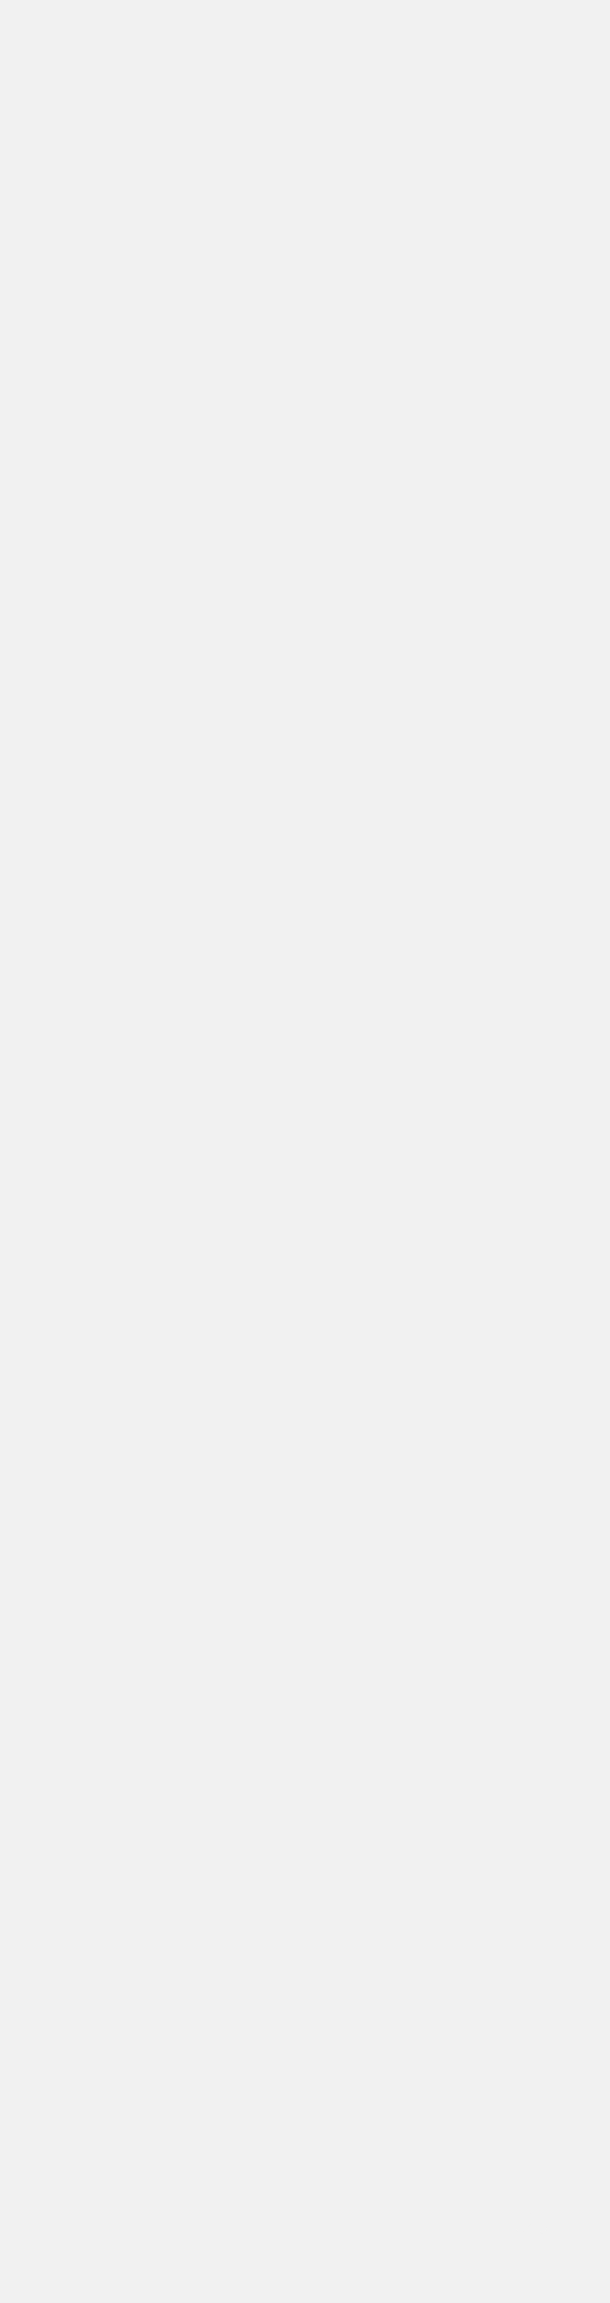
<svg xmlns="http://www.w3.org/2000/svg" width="610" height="2303">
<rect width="100%" height="100%" fill="#f1f1f1"/>
<image x="516" y="2213" width="31" height="21" href="media/1.png"/>
</svg>
